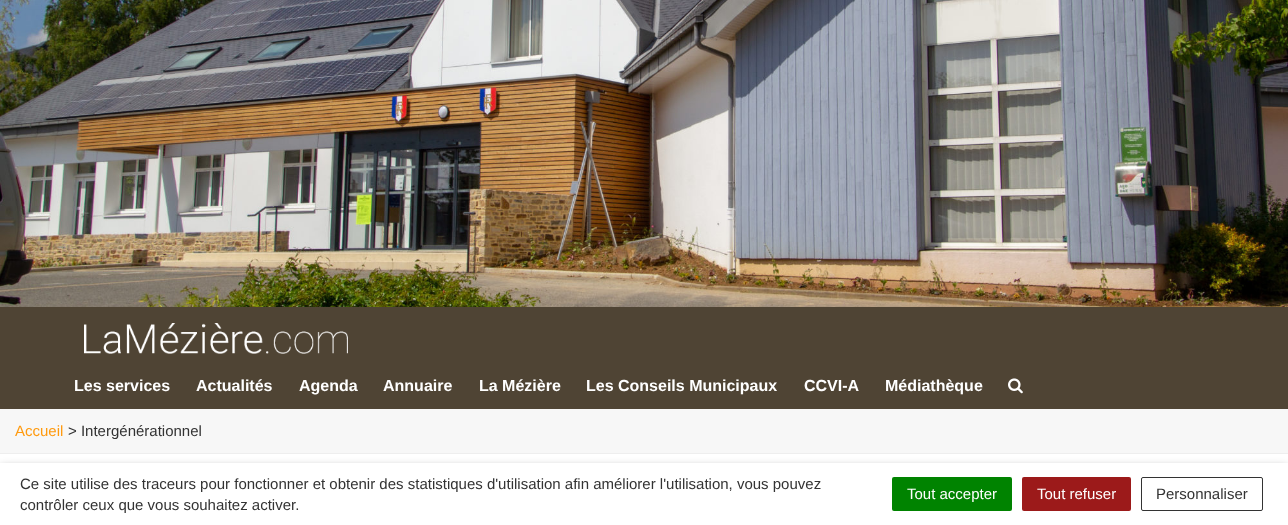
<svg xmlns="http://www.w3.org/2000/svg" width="1288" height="525">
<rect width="100%" height="100%" fill="#fff"/>
<image x="0" y="0" width="1288" height="307" href="media/1.png"/>
<rect y="307" width="1288" height="102" fill="#4f4434"/>
<image x="84" y="323" width="264" height="31" href="media/2.png"/>
<text x="74" y="391" style="font-family:Liberation Sans;font-size:16px;font-weight:bold;fill:#fff">Les services</text>
<text x="196" y="391" style="font-family:Liberation Sans;font-size:16px;font-weight:bold;fill:#fff">Actualités</text>
<text x="299" y="391" style="font-family:Liberation Sans;font-size:16px;font-weight:bold;fill:#fff">Agenda</text>
<text x="383" y="391" style="font-family:Liberation Sans;font-size:16px;font-weight:bold;fill:#fff">Annuaire</text>
<text x="479" y="391" style="font-family:Liberation Sans;font-size:16px;font-weight:bold;fill:#fff">La Mézière</text>
<text x="586" y="391" style="font-family:Liberation Sans;font-size:16px;font-weight:bold;fill:#fff">Les Conseils Municipaux</text>
<text x="804" y="391" style="font-family:Liberation Sans;font-size:16px;font-weight:bold;fill:#fff">CCVI-A</text>
<text x="885" y="391" style="font-family:Liberation Sans;font-size:16px;font-weight:bold;fill:#fff">Médiathèque</text>
<image x="1008" y="378" width="15" height="16" href="media/3.png"/>
<rect y="409" width="1288" height="44" fill="#f7f7f7"/>
<rect y="453" width="1288" height="1" fill="#eee"/>
<text x="15" y="436" style="font-family:Liberation Sans;font-size:15px;fill:#ff9a0f">Accueil</text>
<text x="68" y="436" style="font-family:Liberation Sans;font-size:15px;fill:#333">&gt; Intergénérationnel</text>
<rect y="468" width="1288" height="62" fill="#00000080" filter="blur(5px)"/>
<rect y="463" width="1288" height="62" fill="#fff"/>
<text x="20" y="489" style="font-family:Liberation Sans;font-size:15px;fill:#333">Ce site utilise des traceurs pour fonctionner et obtenir des statistiques d'utilisation afin améliorer l'utilisation, vous pouvez</text>
<text x="20" y="510" style="font-family:Liberation Sans;font-size:15px;fill:#333">contrôler ceux que vous souhaitez activer.</text>
<rect x="892" y="477" width="120" height="34" rx="2" fill="#008300"/>
<text x="907" y="499" style="font-family:Liberation Sans;font-size:15px;fill:#fff">Tout accepter</text>
<rect x="1022" y="477" width="109" height="34" rx="2" fill="#9c1a1a"/>
<text x="1037" y="499" style="font-family:Liberation Sans;font-size:15px;fill:#fff">Tout refuser</text>
<rect x="1141.5" y="477.5" width="121" height="33" rx="1.5" fill="none" stroke="#333"/>
<text x="1156" y="499" style="font-family:Liberation Sans;font-size:15px;fill:#333">Personnaliser</text>
</svg>
